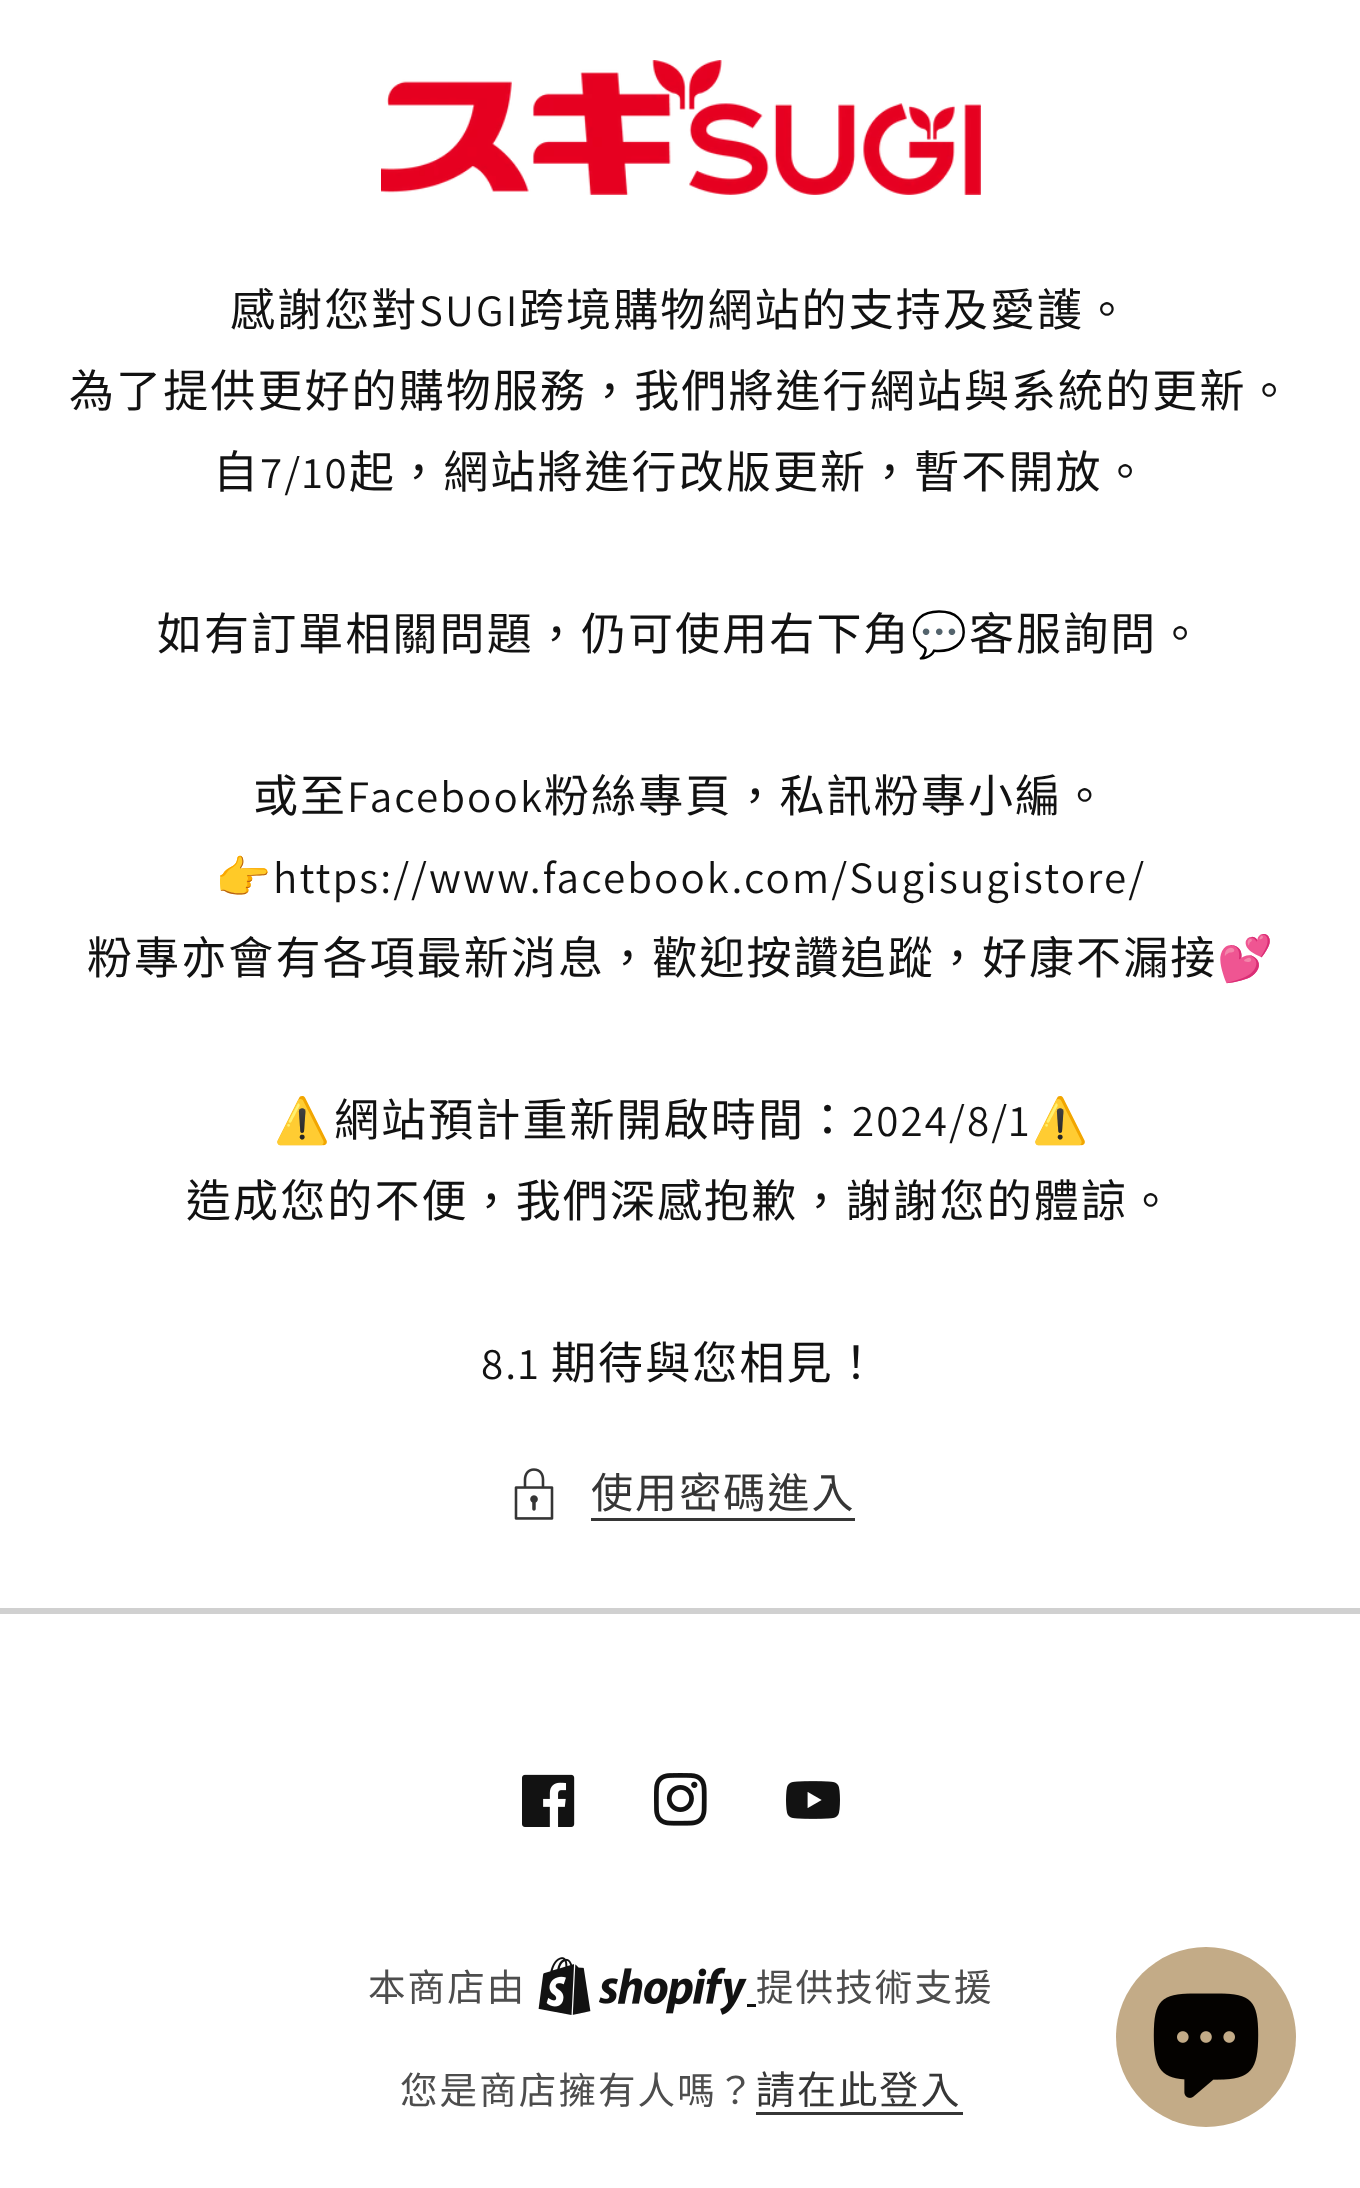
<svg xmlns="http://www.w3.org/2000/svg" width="1360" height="2188">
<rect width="100%" height="100%" fill="#fff"/>
<image x="381" y="60" width="600" height="135" href="media/1.png"/>
<text x="230" y="326" style="font-family:Noto Sans CJK TC;font-size:45px;letter-spacing:2.1px;fill:#121212">感謝您對</text>
<text x="419" y="326" style="font-family:Assistant;font-size:45px;letter-spacing:2.1px;fill:#121212">SUGI</text>
<text x="519" y="326" style="font-family:Noto Sans CJK TC;font-size:45px;letter-spacing:2.1px;fill:#121212">跨境購物網站的支持及愛護。</text>
<text x="69" y="407" style="font-family:Noto Sans CJK TC;font-size:45px;letter-spacing:2.1px;fill:#121212">為了提供更好的購物服務，我們將進行網站與系統的更新。</text>
<text x="213" y="488" style="font-family:Noto Sans CJK TC;font-size:45px;letter-spacing:2.1px;fill:#121212">自</text>
<text x="260" y="488" style="font-family:Assistant;font-size:45px;letter-spacing:2.1px;fill:#121212">7/10</text>
<text x="349" y="488" style="font-family:Noto Sans CJK TC;font-size:45px;letter-spacing:2.1px;fill:#121212">起，網站將進行改版更新，暫不開放。</text>
<text x="157" y="650" style="font-family:Noto Sans CJK TC;font-size:45px;letter-spacing:2.1px;fill:#121212">如有訂單相關問題，仍可使用右下角</text>
<text x="911" y="650" style="font-family:Noto Color Emoji;font-size:45px;letter-spacing:2.1px;fill:#121212">💬</text>
<text x="969" y="650" style="font-family:Noto Sans CJK TC;font-size:45px;letter-spacing:2.1px;fill:#121212">客服詢問。</text>
<text x="253" y="812" style="font-family:Noto Sans CJK TC;font-size:45px;letter-spacing:2.1px;fill:#121212">或至</text>
<text x="347" y="812" style="font-family:Assistant;font-size:45px;letter-spacing:2.1px;fill:#121212">Facebook</text>
<text x="544" y="812" style="font-family:Noto Sans CJK TC;font-size:45px;letter-spacing:2.1px;fill:#121212">粉絲專頁，私訊粉專小編。</text>
<text x="215" y="893" style="font-family:Noto Color Emoji;font-size:45px;letter-spacing:2.1px;fill:#121212">👉</text>
<text x="273" y="893" style="font-family:Assistant;font-size:45px;letter-spacing:2.1px;fill:#121212">https://www.facebook.com/Sugisugistore/</text>
<text x="87" y="974" style="font-family:Noto Sans CJK TC;font-size:45px;letter-spacing:2.1px;fill:#121212">粉專亦會有各項最新消息，歡迎按讚追蹤，好康不漏接</text>
<text x="1217" y="974" style="font-family:Noto Color Emoji;font-size:45px;letter-spacing:2.1px;fill:#121212">💕</text>
<text x="274" y="1136" style="font-family:Noto Color Emoji;font-size:45px;letter-spacing:2.1px;fill:#121212">⚠️</text>
<text x="334" y="1136" style="font-family:Noto Sans CJK TC;font-size:45px;letter-spacing:2.1px;fill:#121212">網站預計重新開啟時間：</text>
<text x="852" y="1136" style="font-family:Assistant;font-size:45px;letter-spacing:2.1px;fill:#121212">2024/8/1</text>
<text x="1032" y="1136" style="font-family:Noto Color Emoji;font-size:45px;letter-spacing:2.1px;fill:#121212">⚠️</text>
<text x="186" y="1217" style="font-family:Noto Sans CJK TC;font-size:45px;letter-spacing:2.1px;fill:#121212">造成您的不便，我們深感抱歉，謝謝您的體諒。</text>
<text x="481" y="1379" style="font-family:Assistant;font-size:45px;letter-spacing:2.1px;fill:#121212">8.1</text>
<text x="551" y="1379" style="font-family:Noto Sans CJK TC;font-size:45px;letter-spacing:2.1px;fill:#121212">期待與您相見！</text>
<image x="514" y="1468" width="40" height="52" href="media/2.png"/>
<text x="591" y="1508" style="font-family:Noto Sans CJK TC;font-size:42px;letter-spacing:2.1px;fill:#363636">使用密碼進入</text>
<rect x="591" y="1518" width="264" height="3" fill="#363636"/>
<rect y="1608" width="1360" height="6" fill="#d0d0d0"/>
<image x="522" y="1774" width="53" height="53" href="media/3.png"/>
<image x="654" y="1773" width="53" height="53" href="media/4.png"/>
<image x="786" y="1781" width="54" height="38" href="media/5.png"/>
<text x="368" y="2001" style="font-family:Noto Sans CJK TC;font-size:37.5px;letter-spacing:2.1px;fill:#4d4d4d">本商店由</text>
<image x="538" y="1957" width="209" height="58" href="media/6.png"/>
<text x="756" y="2001" style="font-family:Noto Sans CJK TC;font-size:37.5px;letter-spacing:2.1px;fill:#4d4d4d">提供技術支援</text>
<rect x="747" y="2004" width="9" height="3" fill="#121212"/>
<text x="400" y="2104" style="font-family:Noto Sans CJK TC;font-size:37.5px;letter-spacing:2.1px;fill:#4d4d4d">您是商店擁有人嗎？</text>
<text x="756" y="2104" style="font-family:Noto Sans CJK TC;font-size:39px;letter-spacing:2.1px;fill:#363636">請在此登入</text>
<rect x="756" y="2112" width="207" height="3" fill="#363636"/>
<circle cx="1206" cy="2037" r="90" fill="#c3ab87"/>
<image x="1153" y="1993" width="106" height="105" href="media/7.png"/>
</svg>
